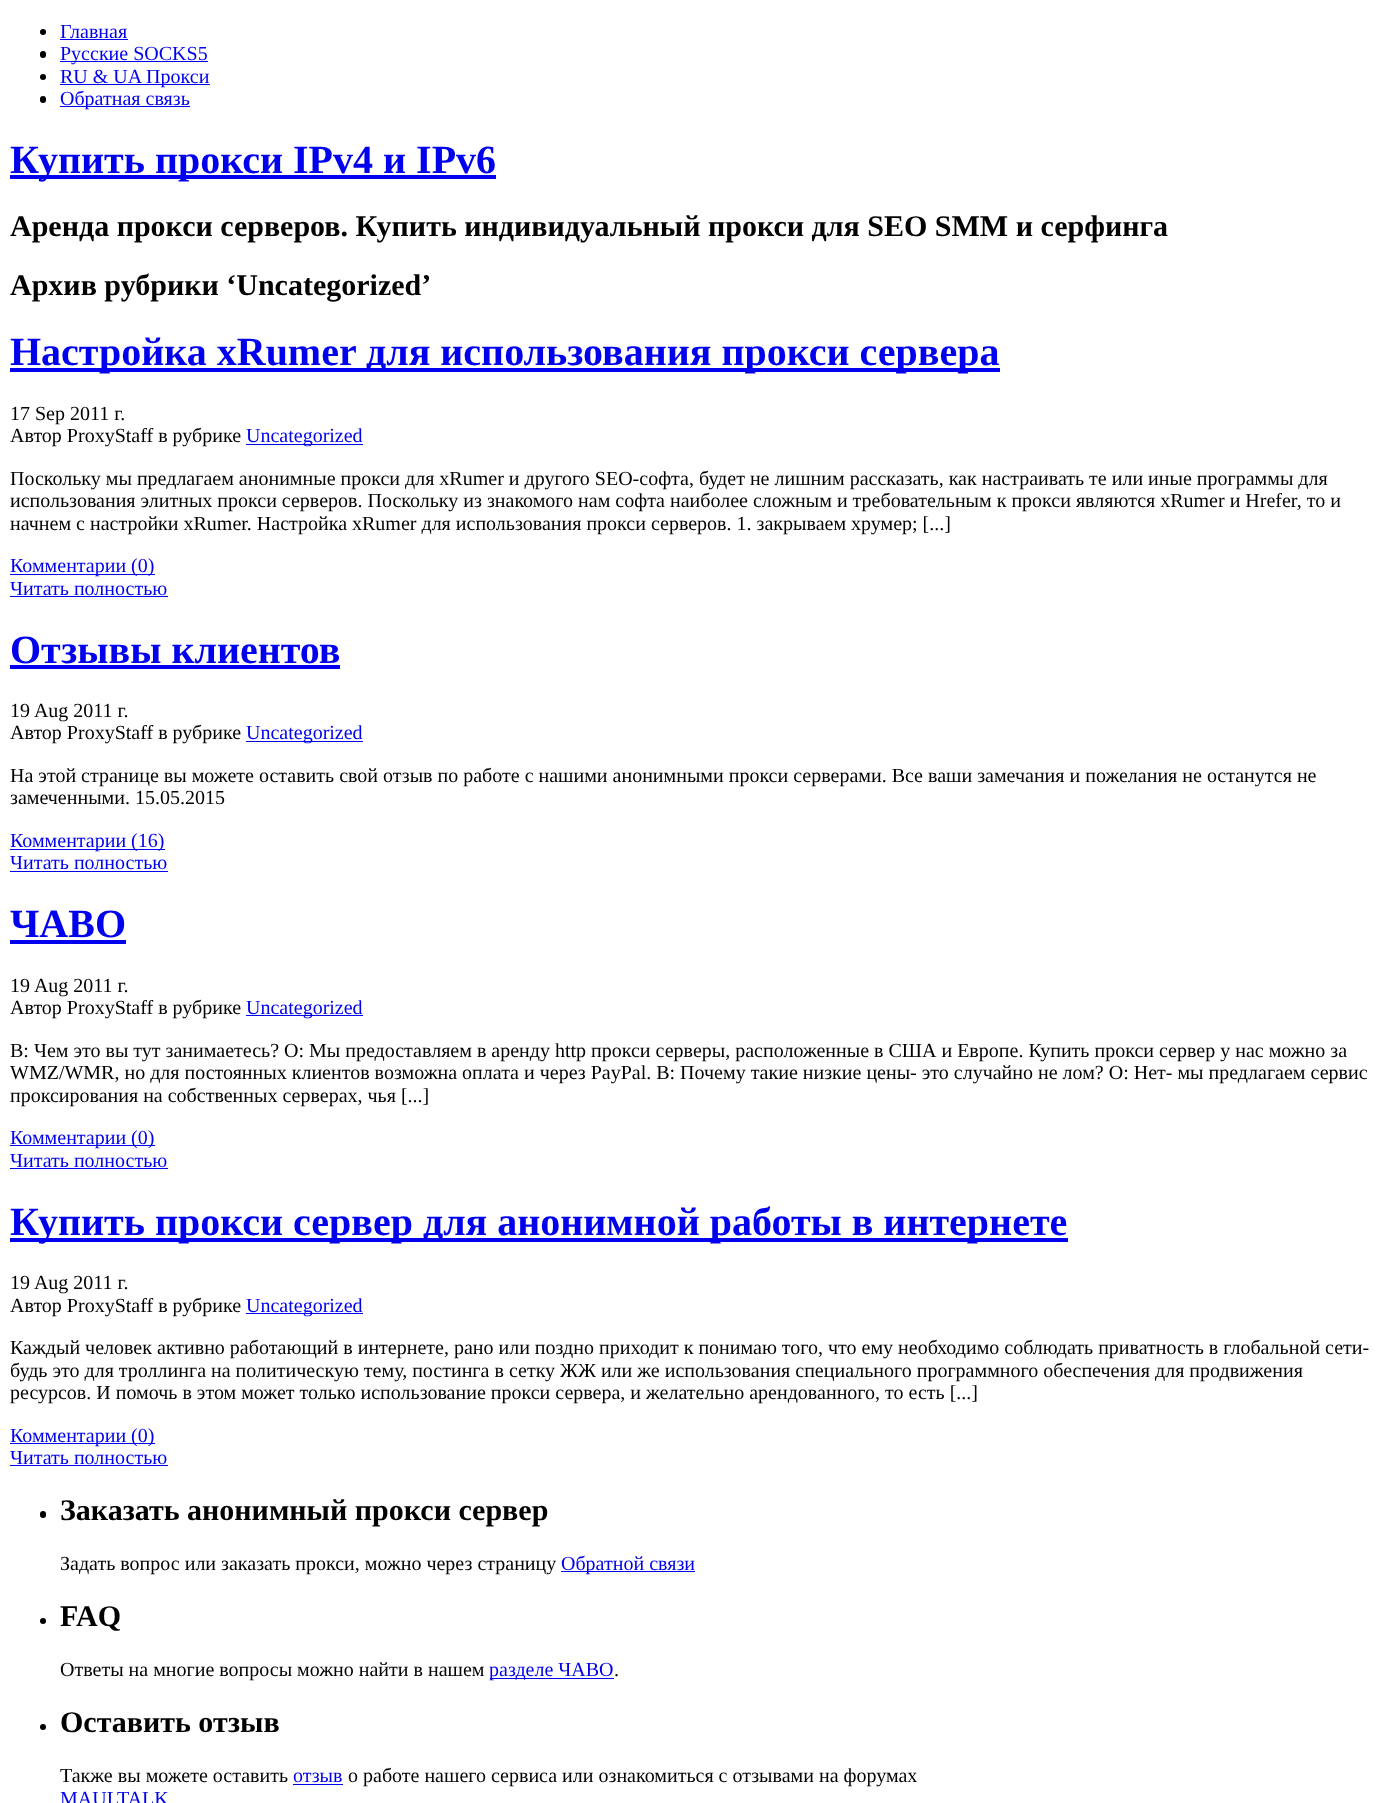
<svg xmlns="http://www.w3.org/2000/svg" width="1397" height="1803">
<rect width="100%" height="100%" fill="#fff"/>
<circle cx="43" cy="32" r="3" fill="#000"/>
<text x="60" y="38" style="font-family:Liberation Serif;font-size:20px;fill:#00e">Главная</text>
<rect x="60" y="39" width="68" height="1" fill="#00e"/>
<rect x="40" y="51" width="6" height="7" rx="3" fill="#000"/>
<rect x="60" y="61" width="148" height="1" fill="#00e"/>
<text x="60" y="60" style="font-family:Liberation Serif;font-size:20px;fill:#00e">Русские SOCKS5</text>
<circle cx="43" cy="77" r="3" fill="#000"/>
<rect x="60" y="84" width="150" height="1" fill="#00e"/>
<text x="60" y="83" style="font-family:Liberation Serif;font-size:20px;fill:#00e">RU &amp; UA Прокси</text>
<rect x="40" y="96" width="6" height="7" rx="3" fill="#000"/>
<rect x="60" y="106" width="130" height="1" fill="#00e"/>
<text x="60" y="105" style="font-family:Liberation Serif;font-size:20px;fill:#00e">Обратная связь</text>
<rect x="10" y="175" width="486" height="4" fill="#00e"/>
<text x="10" y="173" style="font-family:Liberation Serif;font-size:40px;font-weight:bold;fill:#00e">Купить прокси IPv4 и IPv6</text>
<text x="10" y="236" style="font-family:Liberation Serif;font-size:30px;font-weight:bold;fill:#000">Аренда прокси серверов. Купить индивидуальный прокси для SEO SMM и серфинга</text>
<text x="10" y="295" style="font-family:Liberation Serif;font-size:30px;font-weight:bold;fill:#000">Архив рубрики ‘Uncategorized’</text>
<rect x="10" y="368" width="990" height="4" fill="#00e"/>
<text x="10" y="365" style="font-family:Liberation Serif;font-size:40px;font-weight:bold;fill:#00e">Настройка xRumer для использования прокси сервера</text>
<text x="10" y="420" style="font-family:Liberation Serif;font-size:20px;fill:#000">17 Sep 2011 г.</text>
<text x="10" y="442" style="font-family:Liberation Serif;font-size:20px;fill:#000">Автор ProxyStaff в рубрике</text>
<rect x="246" y="444" width="117" height="1" fill="#00e"/>
<text x="246" y="442" style="font-family:Liberation Serif;font-size:20px;fill:#00e">Uncategorized</text>
<text x="10" y="485" style="font-family:Liberation Serif;font-size:20px;fill:#000">Поскольку мы предлагаем анонимные прокси для xRumer и другого SEO-софта, будет не лишним рассказать, как настраивать те или иные программы для</text>
<text x="10" y="507" style="font-family:Liberation Serif;font-size:20px;fill:#000">использования элитных прокси серверов. Поскольку из знакомого нам софта наиболее сложным и требовательным к прокси являются xRumer и Hrefer, то и</text>
<text x="10" y="530" style="font-family:Liberation Serif;font-size:20px;fill:#000">начнем с настройки xRumer. Настройка xRumer для использования прокси серверов. 1. закрываем хрумер; [...]</text>
<rect x="10" y="574" width="145" height="1" fill="#00e"/>
<text x="10" y="572" style="font-family:Liberation Serif;font-size:20px;fill:#00e">Комментарии (0)</text>
<text x="10" y="595" style="font-family:Liberation Serif;font-size:20px;fill:#00e">Читать полностью</text>
<rect x="10" y="596" width="158" height="1" fill="#00e"/>
<text x="10" y="663" style="font-family:Liberation Serif;font-size:40px;font-weight:bold;fill:#00e">Отзывы клиентов</text>
<rect x="10" y="665" width="330" height="4" fill="#00e"/>
<text x="10" y="717" style="font-family:Liberation Serif;font-size:20px;fill:#000">19 Aug 2011 г.</text>
<text x="10" y="739" style="font-family:Liberation Serif;font-size:20px;fill:#000">Автор ProxyStaff в рубрике</text>
<rect x="246" y="741" width="117" height="1" fill="#00e"/>
<text x="246" y="739" style="font-family:Liberation Serif;font-size:20px;fill:#00e">Uncategorized</text>
<text x="10" y="782" style="font-family:Liberation Serif;font-size:20px;fill:#000">На этой странице вы можете оставить свой отзыв по работе с нашими анонимными прокси серверами. Все ваши замечания и пожелания не останутся не</text>
<text x="10" y="804" style="font-family:Liberation Serif;font-size:20px;fill:#000">замеченными. 15.05.2015</text>
<rect x="10" y="849" width="155" height="1" fill="#00e"/>
<text x="10" y="847" style="font-family:Liberation Serif;font-size:20px;fill:#00e">Комментарии (16)</text>
<text x="10" y="869" style="font-family:Liberation Serif;font-size:20px;fill:#00e">Читать полностью</text>
<rect x="10" y="871" width="158" height="1" fill="#00e"/>
<text x="10" y="937" style="font-family:Liberation Serif;font-size:40px;font-weight:bold;fill:#00e">ЧАВО</text>
<rect x="10" y="940" width="116" height="4" fill="#00e"/>
<text x="10" y="992" style="font-family:Liberation Serif;font-size:20px;fill:#000">19 Aug 2011 г.</text>
<text x="10" y="1014" style="font-family:Liberation Serif;font-size:20px;fill:#000">Автор ProxyStaff в рубрике</text>
<rect x="246" y="1015" width="117" height="1" fill="#00e"/>
<text x="246" y="1014" style="font-family:Liberation Serif;font-size:20px;fill:#00e">Uncategorized</text>
<text x="10" y="1057" style="font-family:Liberation Serif;font-size:20px;fill:#000">В: Чем это вы тут занимаетесь? О: Мы предоставляем в аренду http прокси серверы, расположенные в США и Европе. Купить прокси сервер у нас можно за</text>
<text x="10" y="1079" style="font-family:Liberation Serif;font-size:20px;fill:#000">WMZ/WMR, но для постоянных клиентов возможна оплата и через PayPal. В: Почему такие низкие цены- это случайно не лом? О: Нет- мы предлагаем сервис</text>
<text x="10" y="1102" style="font-family:Liberation Serif;font-size:20px;fill:#000">проксирования на собственных серверах, чья [...]</text>
<rect x="10" y="1145" width="145" height="1" fill="#00e"/>
<text x="10" y="1144" style="font-family:Liberation Serif;font-size:20px;fill:#00e">Комментарии (0)</text>
<text x="10" y="1167" style="font-family:Liberation Serif;font-size:20px;fill:#00e">Читать полностью</text>
<rect x="10" y="1168" width="158" height="1" fill="#00e"/>
<rect x="10" y="1238" width="1058" height="4" fill="#00e"/>
<text x="10" y="1235" style="font-family:Liberation Serif;font-size:40px;font-weight:bold;fill:#00e">Купить прокси сервер для анонимной работы в интернете</text>
<text x="10" y="1289" style="font-family:Liberation Serif;font-size:20px;fill:#000">19 Aug 2011 г.</text>
<text x="10" y="1312" style="font-family:Liberation Serif;font-size:20px;fill:#000">Автор ProxyStaff в рубрике</text>
<rect x="246" y="1313" width="117" height="1" fill="#00e"/>
<text x="246" y="1312" style="font-family:Liberation Serif;font-size:20px;fill:#00e">Uncategorized</text>
<text x="10" y="1354" style="font-family:Liberation Serif;font-size:20px;fill:#000">Каждый человек активно работающий в интернете, рано или поздно приходит к понимаю того, что ему необходимо соблюдать приватность в глобальной сети-</text>
<text x="10" y="1377" style="font-family:Liberation Serif;font-size:20px;fill:#000">будь это для троллинга на политическую тему, постинга в сетку ЖЖ или же использования специального программного обеспечения для продвижения</text>
<text x="10" y="1399" style="font-family:Liberation Serif;font-size:20px;fill:#000">ресурсов. И помочь в этом может только использование прокси сервера, и желательно арендованного, то есть [...]</text>
<rect x="10" y="1443" width="145" height="1" fill="#00e"/>
<text x="10" y="1442" style="font-family:Liberation Serif;font-size:20px;fill:#00e">Комментарии (0)</text>
<text x="10" y="1464" style="font-family:Liberation Serif;font-size:20px;fill:#00e">Читать полностью</text>
<rect x="10" y="1465" width="158" height="1" fill="#00e"/>
<rect x="40" y="1511" width="6" height="7" rx="3" fill="#000"/>
<text x="60" y="1520" style="font-family:Liberation Serif;font-size:30px;font-weight:bold;fill:#000">Заказать анонимный прокси сервер</text>
<text x="60" y="1570" style="font-family:Liberation Serif;font-size:20px;fill:#000">Задать вопрос или заказать прокси, можно через страницу</text>
<rect x="561" y="1571" width="134" height="1" fill="#00e"/>
<text x="561" y="1570" style="font-family:Liberation Serif;font-size:20px;fill:#00e">Обратной связи</text>
<circle cx="43" cy="1621" r="3" fill="#000"/>
<text x="60" y="1626" style="font-family:Liberation Serif;font-size:30px;font-weight:bold;fill:#000">FAQ</text>
<text x="60" y="1676" style="font-family:Liberation Serif;font-size:20px;fill:#000">Ответы на многие вопросы можно найти в нашем</text>
<rect x="490" y="1678" width="124" height="1" fill="#00e"/>
<text x="489" y="1676" style="font-family:Liberation Serif;font-size:20px;fill:#00e">разделе ЧАВО</text>
<text x="614" y="1676" style="font-family:Liberation Serif;font-size:20px;fill:#000">.</text>
<circle cx="43" cy="1727" r="3" fill="#000"/>
<text x="60" y="1732" style="font-family:Liberation Serif;font-size:30px;font-weight:bold;fill:#000">Оставить отзыв</text>
<text x="60" y="1782" style="font-family:Liberation Serif;font-size:20px;fill:#000">Также вы можете оставить</text>
<text x="293" y="1782" style="font-family:Liberation Serif;font-size:20px;fill:#00e">отзыв</text>
<rect x="293" y="1784" width="50" height="1" fill="#00e"/>
<text x="348" y="1782" style="font-family:Liberation Serif;font-size:20px;fill:#000">о работе нашего сервиса или ознакомиться с отзывами на форумах</text>
<text x="60" y="1805" style="font-family:Liberation Serif;font-size:20px;fill:#00e">MAULTALK</text>
</svg>
